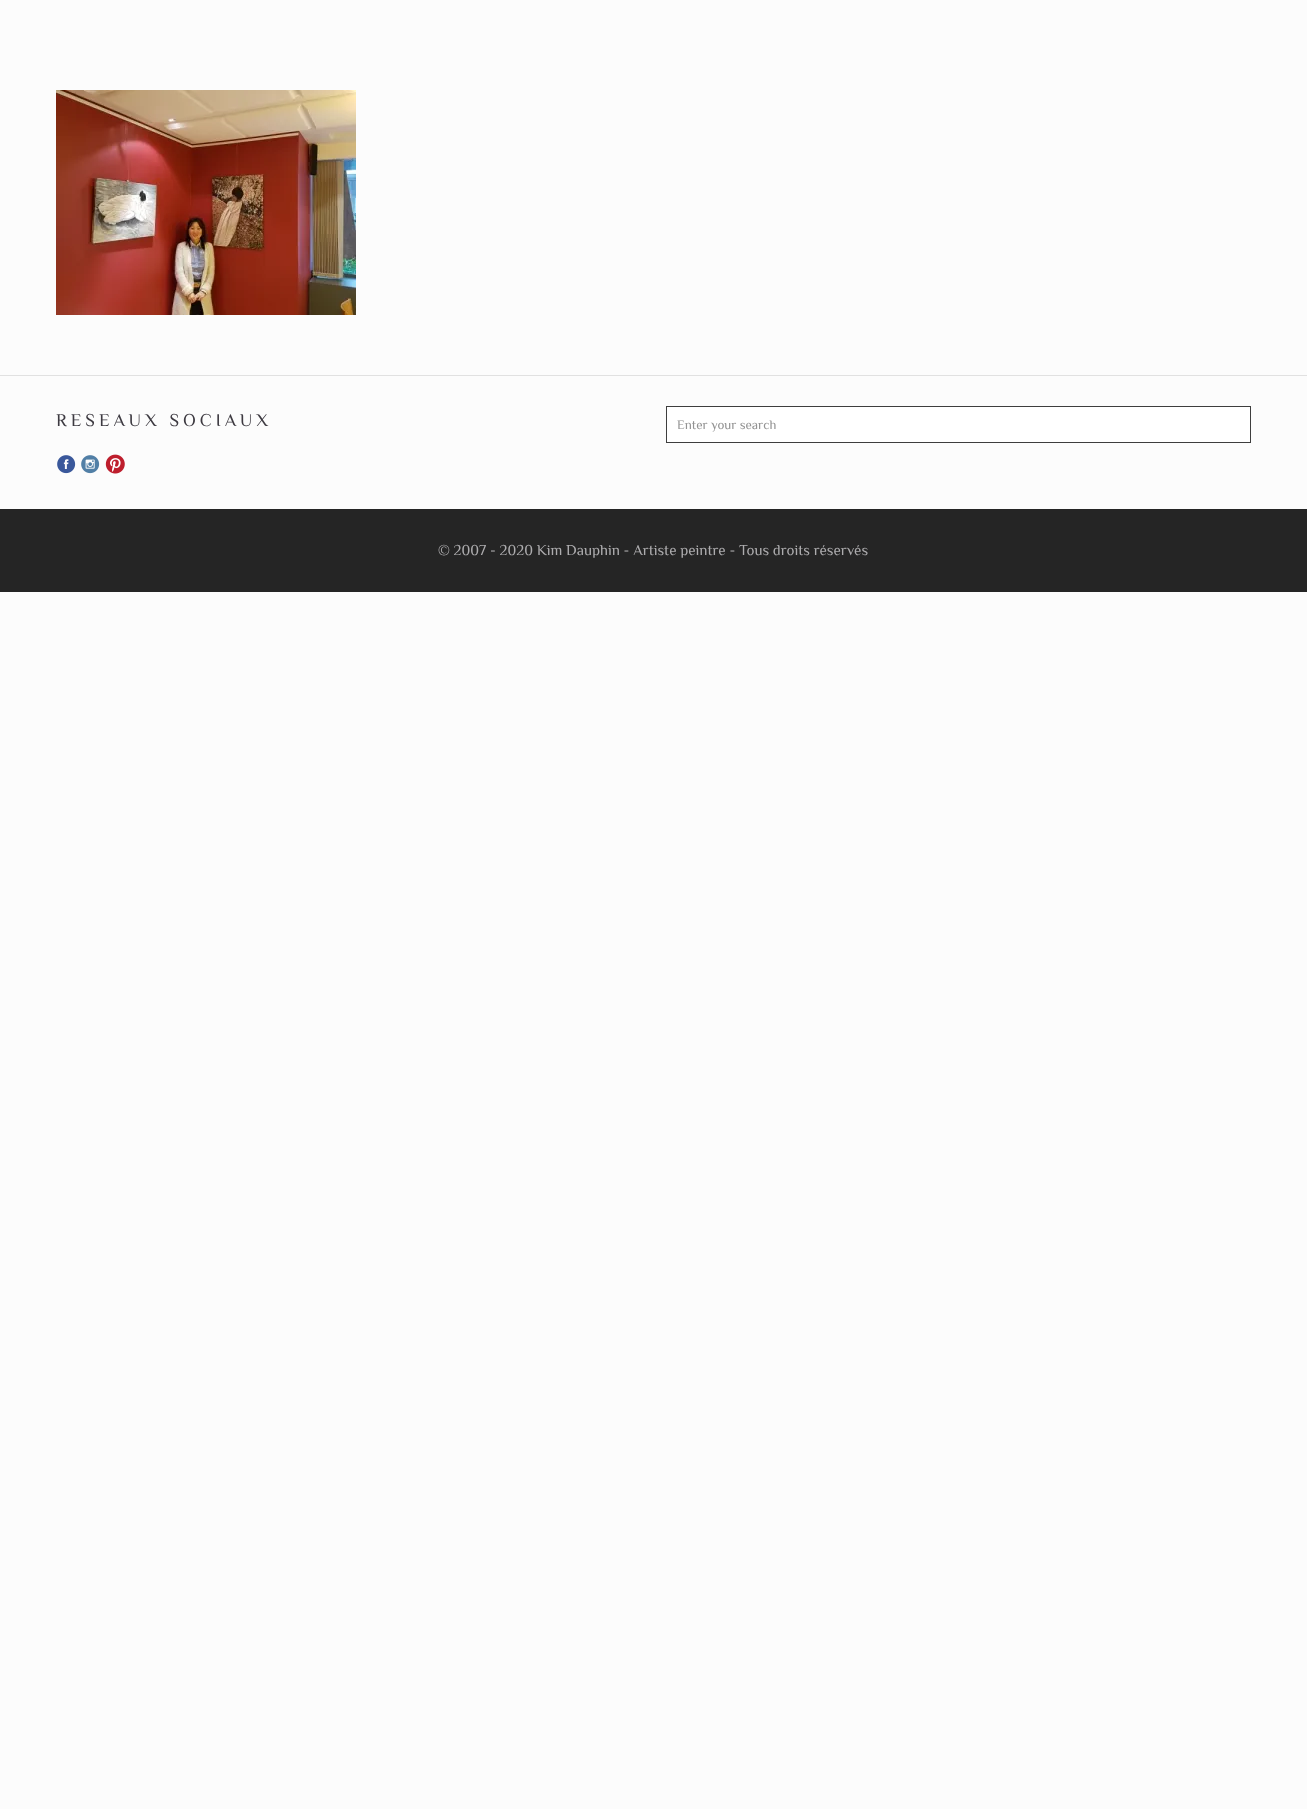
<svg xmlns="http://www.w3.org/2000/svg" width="1307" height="1809">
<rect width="100%" height="100%" fill="#fcfcfc"/>
<image x="56" y="90" width="300" height="225" href="media/1.png"/>
<rect y="375" width="1307" height="1" fill="#e1e1e1"/>
<text x="56" y="426" style="font-family:Philosopher;font-size:18px;letter-spacing:4px;fill:#3d3a41">RESEAUX SOCIAUX</text>
<image x="57" y="455" width="19" height="19" href="media/2.png"/>
<image x="81" y="455" width="19" height="19" href="media/3.png"/>
<image x="105" y="454" width="20" height="20" href="media/4.png"/>
<rect x="666.5" y="406.5" width="584" height="36" fill="#fff" stroke="#3e3e3e"/>
<text x="677" y="429" style="font-family:Philosopher;font-size:13px;fill:#929292">Enter your search</text>
<rect y="509" width="1307" height="83" fill="#252525"/>
<text x="438" y="555" style="font-family:Philosopher;font-size:15px;fill:#adacae">© 2007 - 2020 Kim Dauphin - Artiste peintre - Tous droits réservés</text>
</svg>
